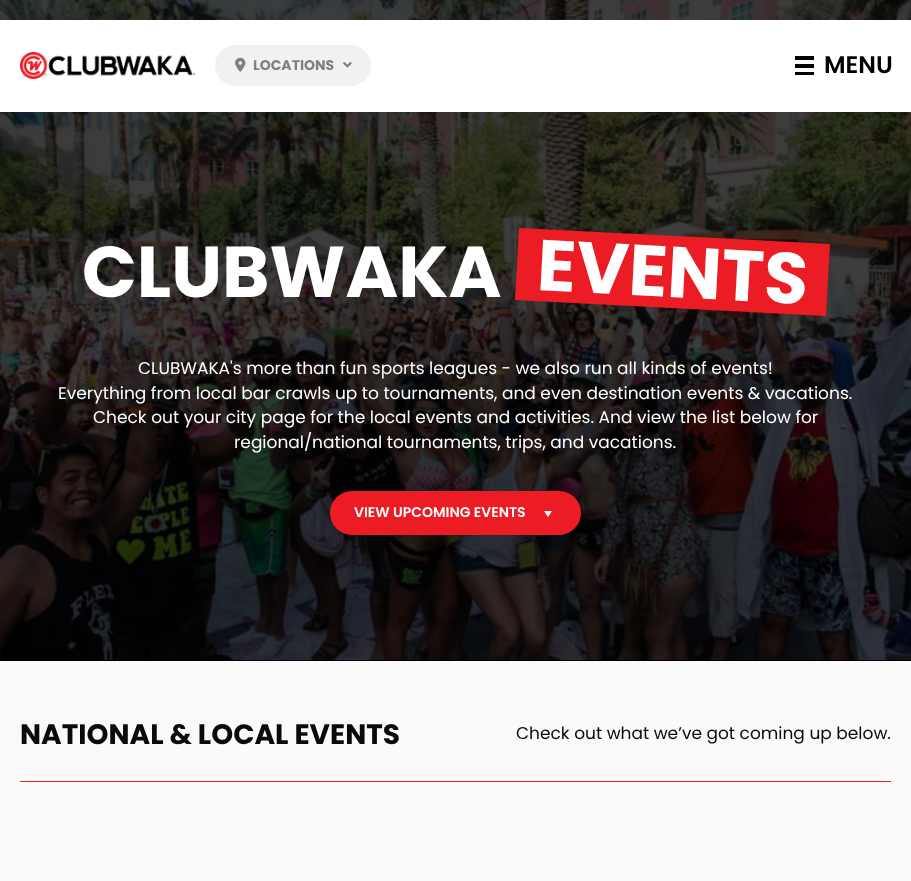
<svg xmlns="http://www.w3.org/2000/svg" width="911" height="881">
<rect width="100%" height="100%" fill="#fafafa"/>
<image x="0" y="0" width="911" height="660" href="media/4.png"/>
<rect y="20" width="911" height="92" fill="#fff"/>
<image x="20" y="52" width="175" height="27" href="media/1.png"/>
<rect x="215" y="45" width="156" height="41" rx="20.5" fill="#f1f1f1"/>
<image x="235" y="57" width="11" height="15" href="media/2.png"/>
<text x="253" y="70" style="font-family:Poppins;font-size:14px;font-weight:bold;fill:#808080">LOCATIONS</text>
<image x="343" y="62" width="9" height="6" href="media/3.png"/>
<rect x="795" y="56" width="19" height="4" fill="#000"/>
<rect x="795" y="64" width="19" height="4" fill="#000"/>
<rect x="795" y="72" width="19" height="3" fill="#000"/>
<text x="824" y="73" style="font-family:Poppins;font-size:24px;font-weight:600;fill:#000">MENU</text>
<rect y="660" width="911" height="1" fill="#000"/>
<text x="82" y="297" style="font-family:Poppins;font-size:72px;font-weight:bold;fill:#fff">CLUBWAKA</text>
<path d="M519 228l311 16l-4 72l-311-16z" fill="#ec1c24"/>
<text x="536" y="290" transform="rotate(3 536 290)" style="font-family:Poppins;font-size:72px;font-weight:bold;fill:#fff">EVENTS</text>
<text x="138" y="374" style="font-family:Poppins;font-size:17px;fill:#fff">CLUBWAKA's more than fun sports leagues - we also run all kinds of events!</text>
<text x="58" y="399" style="font-family:Poppins;font-size:17px;fill:#fff">Everything from local bar crawls up to tournaments, and even destination events &amp; vacations.</text>
<text x="93" y="423" style="font-family:Poppins;font-size:17px;fill:#fff">Check out your city page for the local events and activities. And view the list below for</text>
<text x="234" y="448" style="font-family:Poppins;font-size:17px;fill:#fff">regional/national tournaments, trips, and vacations.</text>
<rect x="330" y="491" width="251" height="44" rx="22" fill="#ec1c24"/>
<text x="354" y="517" style="font-family:Poppins;font-size:14px;font-weight:600;fill:#fff">VIEW UPCOMING EVENTS</text>
<path d="M552 511l-4 6l-4-6z" fill="#fff"/>
<text x="20" y="744" style="font-family:Poppins;font-size:28px;font-weight:bold;fill:#0a0a0a">NATIONAL &amp; LOCAL EVENTS</text>
<text x="516" y="739" style="font-family:Poppins;font-size:17px;fill:#0a0a0a">Check out what we’ve got coming up below.</text>
<rect x="20" y="781" width="871" height="1" fill="#ec1c24"/>
</svg>
